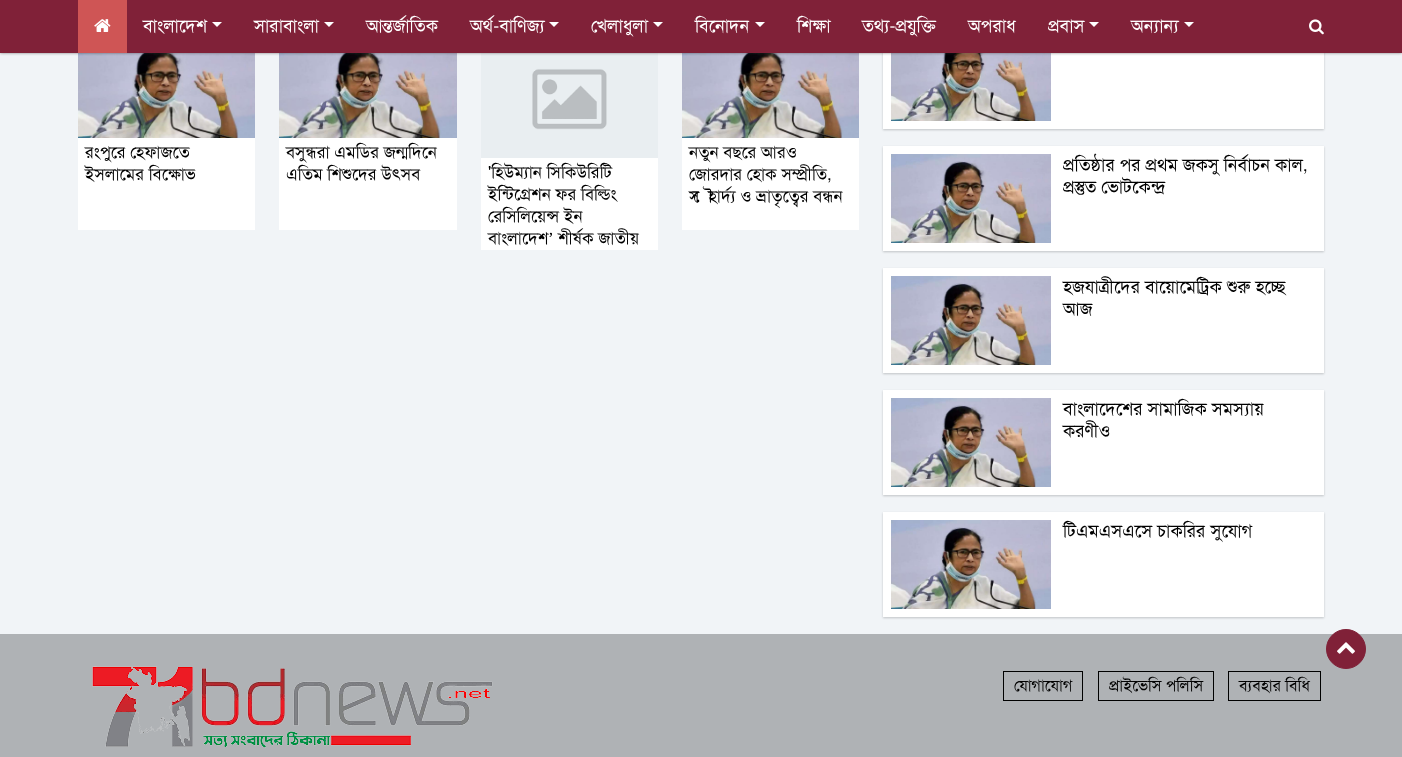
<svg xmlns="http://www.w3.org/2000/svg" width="1402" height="757">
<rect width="100%" height="100%" fill="#f1f4f7"/>
<image x="78" y="53" width="177" height="85" href="media/3.png"/>
<image x="279" y="53" width="178" height="85" href="media/4.png"/>
<image x="481" y="53" width="177" height="105" href="media/5.png"/>
<image x="682" y="53" width="177" height="85" href="media/6.png"/>
<rect x="883" y="25" width="441" height="105" fill="#00000033" filter="blur(1px)"/>
<rect x="883" y="53" width="441" height="76" fill="#fff"/>
<image x="891" y="53" width="160" height="68" href="media/7.png"/>
<rect width="1402" height="53" fill="#32323299" filter="blur(1.5px)"/>
<rect width="1402" height="53" fill="#802138"/>
<rect x="78" width="49" height="53" fill="#cf5555"/>
<image x="94" y="19" width="17" height="13" href="media/1.png"/>
<text x="143" y="32" style="font-family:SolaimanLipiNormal;font-size:18px;fill:#fff">বাংলাদেশ</text>
<path d="M212 22h10l-5 5z" fill="#fff"/>
<text x="254" y="32" style="font-family:SolaimanLipiNormal;font-size:18px;fill:#fff">সারাবাংলা</text>
<path d="M324 22h10l-5 5z" fill="#fff"/>
<text x="366" y="32" style="font-family:SolaimanLipiNormal;font-size:18px;fill:#fff">আন্তর্জাতিক</text>
<text x="470" y="32" style="font-family:SolaimanLipiNormal;font-size:18px;fill:#fff">অর্থ-বাণিজ্য</text>
<path d="M549 22h10l-5 5z" fill="#fff"/>
<text x="591" y="32" style="font-family:SolaimanLipiNormal;font-size:18px;fill:#fff">খেলাধুলা</text>
<path d="M653 22h10l-5 5z" fill="#fff"/>
<text x="695" y="32" style="font-family:SolaimanLipiNormal;font-size:18px;fill:#fff">বিনোদন</text>
<path d="M755 22h10l-5 5z" fill="#fff"/>
<text x="797" y="32" style="font-family:SolaimanLipiNormal;font-size:18px;fill:#fff">শিক্ষা</text>
<text x="862" y="32" style="font-family:SolaimanLipiNormal;font-size:18px;fill:#fff">তথ্য-প্রযুক্তি</text>
<text x="968" y="32" style="font-family:SolaimanLipiNormal;font-size:18px;fill:#fff">অপরাধ</text>
<text x="1048" y="32" style="font-family:SolaimanLipiNormal;font-size:18px;fill:#fff">প্রবাস</text>
<path d="M1089 22h10l-5 5z" fill="#fff"/>
<text x="1131" y="32" style="font-family:SolaimanLipiNormal;font-size:18px;fill:#fff">অন্যান্য</text>
<path d="M1184 22h10l-5 5z" fill="#fff"/>
<image x="1309" y="19" width="15" height="16" href="media/2.png"/>
<rect x="78" y="138" width="177" height="92" fill="#fff"/>
<text x="85" y="158" style="font-family:SolaimanLipiNormal;font-size:17px;fill:#000">রংপুরে হেফাজতে</text>
<text x="85" y="180" style="font-family:SolaimanLipiNormal;font-size:17px;fill:#000">ইসলামের বিক্ষোভ</text>
<rect x="279" y="138" width="178" height="92" fill="#fff"/>
<text x="286" y="158" style="font-family:SolaimanLipiNormal;font-size:17px;fill:#000">বসুন্ধরা এমডির জন্মদিনে</text>
<text x="286" y="180" style="font-family:SolaimanLipiNormal;font-size:17px;fill:#000">এতিম শিশুদের উৎসব</text>
<rect x="481" y="158" width="177" height="92" fill="#fff"/>
<text x="488" y="178" style="font-family:SolaimanLipiNormal;font-size:17px;fill:#000">'হিউম্যান সিকিউরিটি</text>
<text x="488" y="200" style="font-family:SolaimanLipiNormal;font-size:17px;fill:#000">ইন্টিগ্রেশন ফর বিল্ডিং</text>
<text x="488" y="222" style="font-family:SolaimanLipiNormal;font-size:17px;fill:#000">রেসিলিয়েন্স ইন</text>
<text x="488" y="244" style="font-family:SolaimanLipiNormal;font-size:17px;fill:#000">বাংলাদেশ</text>
<text x="548" y="244" style="font-family:Liberation Serif;font-size:17px;fill:#000">’</text>
<text x="558" y="244" style="font-family:SolaimanLipiNormal;font-size:17px;fill:#000">শীর্ষক জাতীয়</text>
<rect x="682" y="138" width="177" height="92" fill="#fff"/>
<text x="689" y="158" style="font-family:SolaimanLipiNormal;font-size:17px;fill:#000">নতুন বছরে আরও</text>
<text x="689" y="180" style="font-family:SolaimanLipiNormal;font-size:17px;fill:#000">জোরদার হোক সম্প্রীতি,</text>
<text x="689" y="202" style="font-family:SolaimanLipiNormal;font-size:17px;fill:#000">সৌহার্দ্য ও ভ্রাতৃত্বের বন্ধন</text>
<rect x="883" y="147" width="441" height="105" fill="#00000033" filter="blur(1px)"/>
<rect x="883" y="146" width="441" height="105" fill="#fff"/>
<image x="891" y="154" width="160" height="89" href="media/8.png"/>
<text x="1063" y="171" style="font-family:SolaimanLipiNormal;font-size:18px;fill:#000">প্রতিষ্ঠার পর প্রথম জকসু নির্বাচন কাল,</text>
<text x="1063" y="193" style="font-family:SolaimanLipiNormal;font-size:18px;fill:#000">প্রস্তুত ভোটকেন্দ্র</text>
<rect x="883" y="269" width="441" height="105" fill="#00000033" filter="blur(1px)"/>
<rect x="883" y="268" width="441" height="105" fill="#fff"/>
<image x="891" y="276" width="160" height="89" href="media/8.png"/>
<text x="1063" y="293" style="font-family:SolaimanLipiNormal;font-size:18px;fill:#000">হজযাত্রীদের বায়োমেট্রিক শুরু হচ্ছে</text>
<text x="1063" y="315" style="font-family:SolaimanLipiNormal;font-size:18px;fill:#000">আজ</text>
<rect x="883" y="391" width="441" height="105" fill="#00000033" filter="blur(1px)"/>
<rect x="883" y="390" width="441" height="105" fill="#fff"/>
<image x="891" y="398" width="160" height="89" href="media/8.png"/>
<text x="1063" y="415" style="font-family:SolaimanLipiNormal;font-size:18px;fill:#000">বাংলাদেশের সামাজিক সমস্যায়</text>
<text x="1063" y="437" style="font-family:SolaimanLipiNormal;font-size:18px;fill:#000">করণীও</text>
<rect x="883" y="513" width="441" height="105" fill="#00000033" filter="blur(1px)"/>
<rect x="883" y="512" width="441" height="105" fill="#fff"/>
<image x="891" y="520" width="160" height="89" href="media/9.png"/>
<text x="1063" y="537" style="font-family:SolaimanLipiNormal;font-size:18px;fill:#000">টিএমএসএসে চাকরির সুযোগ</text>
<rect y="634" width="1402" height="123" fill="#afb2b5"/>
<circle cx="1346" cy="649" r="19.5" fill="#802138" stroke="#802138"/>
<image x="1337" y="642" width="18" height="12" href="media/10.png"/>
<image x="92" y="666" width="401" height="82" href="media/11.png"/>
<rect x="1003.5" y="671.5" width="79" height="29" fill="none" stroke="#000"/>
<text x="1014" y="691" style="font-family:SolaimanLipiNormal;font-size:16px;fill:#000">যোগাযোগ</text>
<rect x="1098.5" y="671.5" width="115" height="29" fill="none" stroke="#000"/>
<text x="1109" y="691" style="font-family:SolaimanLipiNormal;font-size:16px;fill:#000">প্রাইভেসি পলিসি</text>
<rect x="1228.5" y="671.5" width="92" height="29" fill="none" stroke="#000"/>
<text x="1239" y="691" style="font-family:SolaimanLipiNormal;font-size:16px;fill:#000">ব্যবহার বিধি</text>
</svg>
